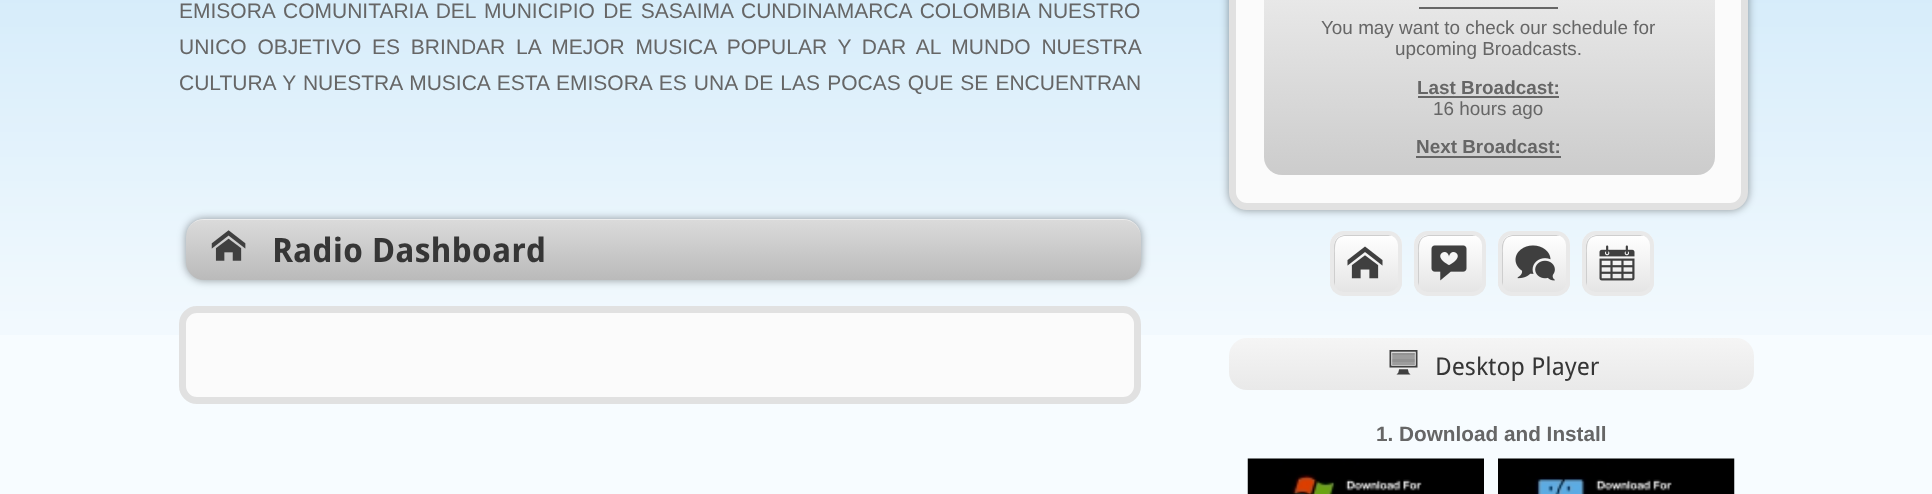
<svg xmlns="http://www.w3.org/2000/svg" width="1932" height="494">
<defs>
<linearGradient id="g1" gradientUnits="userSpaceOnUse" x1="663" y1="219" x2="663" y2="280"><stop offset="0" stop-color="#dbdbdb"/><stop offset="1" stop-color="#bababa"/></linearGradient>
<linearGradient id="g2" gradientUnits="userSpaceOnUse" x1="1489" y1="-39" x2="1489" y2="175"><stop offset="0" stop-color="#eee"/><stop offset="1" stop-color="#ccc"/></linearGradient>
<clipPath id="clip1"><rect x="1330" y="231" width="72" height="65" rx="14"/></clipPath>
<linearGradient id="g3" gradientUnits="userSpaceOnUse" x1="1366" y1="235" x2="1366" y2="292"><stop offset="0" stop-color="#fff"/><stop offset="1" stop-color="#e5e5e5"/></linearGradient>
<clipPath id="clip2"><rect x="1414" y="231" width="72" height="65" rx="14"/></clipPath>
<linearGradient id="g4" gradientUnits="userSpaceOnUse" x1="1450" y1="235" x2="1450" y2="292"><stop offset="0" stop-color="#fff"/><stop offset="1" stop-color="#e5e5e5"/></linearGradient>
<clipPath id="clip3"><rect x="1498" y="231" width="72" height="65" rx="14"/></clipPath>
<linearGradient id="g5" gradientUnits="userSpaceOnUse" x1="1534" y1="235" x2="1534" y2="292"><stop offset="0" stop-color="#fff"/><stop offset="1" stop-color="#e5e5e5"/></linearGradient>
<clipPath id="clip4"><rect x="1582" y="231" width="72" height="65" rx="14"/></clipPath>
<linearGradient id="g6" gradientUnits="userSpaceOnUse" x1="1618" y1="235" x2="1618" y2="292"><stop offset="0" stop-color="#fff"/><stop offset="1" stop-color="#e5e5e5"/></linearGradient>
<linearGradient id="g7" gradientUnits="userSpaceOnUse" x1="1491" y1="338" x2="1491" y2="390"><stop offset="0" stop-color="#f5f5f5"/><stop offset="1" stop-color="#e9e9e9"/></linearGradient>
</defs>
<rect width="100%" height="100%" fill="#f7fcff"/>
<image x="0" y="0" width="1932" height="335" href="media/1.png"/>
<text x="179" y="18" word-spacing="2.5" style="font-family:Liberation Sans;font-size:21px;fill:#666">EMISORA COMUNITARIA DEL MUNICIPIO DE SASAIMA</text>
<text x="741" y="18" word-spacing="2.5" style="font-family:Liberation Sans;font-size:21px;fill:#666">CUNDINAMARCA COLOMBIA NUESTRO</text>
<text x="179" y="54" word-spacing="4.9" style="font-family:Liberation Sans;font-size:21px;fill:#666">UNICO OBJETIVO ES BRINDAR LA MEJOR MUSICA POPULAR Y DAR AL MUNDO NUESTRA</text>
<text x="179" y="90" word-spacing="1.25" style="font-family:Liberation Sans;font-size:21px;fill:#666">CULTURA Y NUESTRA MUSICA ESTA EMISORA ES UNA DE LAS POCAS QUE SE ENCUENTRAN</text>
<image x="641" y="133" width="38" height="18" href="media/2.png"/>
<rect x="650" y="139" width="19" height="5" fill="#e3f2fc"/>
<rect x="186" y="219" width="955" height="61" rx="18" fill="#00000066" filter="blur(4.5px)"/>
<rect x="186" y="219" width="955" height="61" rx="18" fill="url(#g1)"/>
<path d="M203 220h921c9 0 17 8 17 18c0-10-7-19-18-19h-919c-11 0-18 9-18 19c0-10 7-18 17-18z" fill="#ffffff80"/>
<image x="211" y="230" width="35" height="31" href="media/3.png"/>
<text x="272" y="262" style="font-family:Droid Sans;font-size:33.5px;font-weight:bold;fill:#363636">Radio Dashboard</text>
<rect x="182.5" y="309.5" width="955" height="91" rx="14.5" fill="#fbfbfb" stroke="#e1e1e1" stroke-width="7"/>
<rect x="1229" y="-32" width="519" height="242" rx="18" fill="#00000066" filter="blur(4.5px)"/>
<rect x="1232.5" y="-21.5" width="512" height="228" rx="14.5" fill="#fbfbfb" stroke="#e1e1e1" stroke-width="7"/>
<rect x="1264" y="-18" width="451" height="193" rx="18" fill="url(#g2)"/>
<rect x="1419" y="7" width="139" height="2" fill="#666"/>
<text x="1321" y="34" style="font-family:Liberation Sans;font-size:18.9px;fill:#666">You may want to check our schedule for</text>
<text x="1395" y="55" style="font-family:Liberation Sans;font-size:18.9px;fill:#666">upcoming Broadcasts.</text>
<text x="1417" y="94" style="font-family:Liberation Sans;font-size:18.9px;font-weight:bold;fill:#666">Last Broadcast:</text>
<rect x="1418" y="96" width="141" height="2" fill="#666"/>
<text x="1433" y="115" style="font-family:Liberation Sans;font-size:18.9px;fill:#666">16 hours ago</text>
<text x="1416" y="153" style="font-family:Liberation Sans;font-size:18.9px;font-weight:bold;fill:#666">Next Broadcast:</text>
<rect x="1416" y="156" width="145" height="2" fill="#666"/>
<g clip-path="url(#clip1)">
<rect x="1330" y="235" width="72" height="57" fill="url(#g3)"/>
</g>
<path d="M1346 236h46c-1-1-3-1-5-1h-42c-6 0-11 5-11 11v35c0 2 0 4 1 5v-33c0-8 0-17 11-17z" fill="#cecece"/>
<rect x="1332" y="233" width="68" height="61" rx="12" fill="none" stroke="#e9e9e9" stroke-width="4"/>
<image x="1347" y="246" width="36" height="33" href="media/4.png"/>
<g clip-path="url(#clip2)">
<rect x="1414" y="235" width="72" height="57" fill="url(#g4)"/>
</g>
<path d="M1430 236h46c-1-1-3-1-5-1h-42c-6 0-11 5-11 11v35c0 2 0 4 1 5v-33c0-8 0-17 11-17z" fill="#cecece"/>
<rect x="1416" y="233" width="68" height="61" rx="12" fill="none" stroke="#e9e9e9" stroke-width="4"/>
<image x="1431" y="245" width="36" height="36" href="media/5.png"/>
<g clip-path="url(#clip3)">
<rect x="1498" y="235" width="72" height="57" fill="url(#g5)"/>
</g>
<path d="M1514 236h46c-1-1-3-1-5-1h-42c-6 0-11 5-11 11v35c0 2 0 4 1 5v-33c0-8 0-17 11-17z" fill="#cecece"/>
<rect x="1500" y="233" width="68" height="61" rx="12" fill="none" stroke="#e9e9e9" stroke-width="4"/>
<image x="1515" y="245" width="40" height="36" href="media/6.png"/>
<g clip-path="url(#clip4)">
<rect x="1582" y="235" width="72" height="57" fill="url(#g6)"/>
</g>
<path d="M1598 236h46c-1-1-3-1-5-1h-42c-6 0-11 5-11 11v35c0 2 0 4 1 5v-33c0-8 0-17 11-17z" fill="#cecece"/>
<rect x="1584" y="233" width="68" height="61" rx="12" fill="none" stroke="#e9e9e9" stroke-width="4"/>
<image x="1599" y="245" width="36" height="36" href="media/7.png"/>
<rect x="1229" y="338" width="525" height="52" rx="18" fill="url(#g7)"/>
<image x="1389" y="350" width="29" height="25" href="media/8.png"/>
<text x="1435" y="375" style="font-family:Droid Sans;font-size:24.5px;fill:#363636">Desktop Player</text>
<text x="1376" y="441" style="font-family:Liberation Sans;font-size:20.75px;font-weight:bold;fill:#666">1. Download and Install</text>
<image x="1247" y="458" width="237" height="36" href="media/9.png"/>
<image x="1498" y="458" width="237" height="36" href="media/10.png"/>
</svg>
